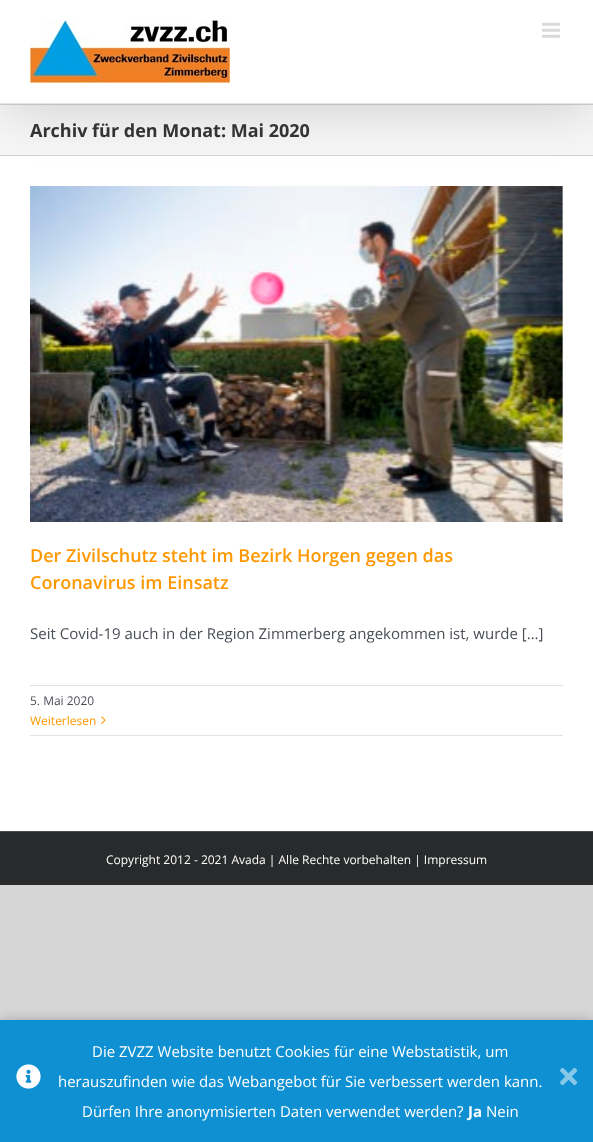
<svg xmlns="http://www.w3.org/2000/svg" width="593" height="1142">
<rect width="100%" height="100%" fill="#d7d6d6"/>
<rect y="105" width="593" height="50" fill="#f6f6f6"/>
<rect y="104" width="593" height="1" fill="#d2d3d4"/>
<rect y="155" width="593" height="1" fill="#d2d3d4"/>
<rect y="156" width="593" height="675" fill="#fff"/>
<image x="30" y="186" width="533" height="336" href="media/3.png"/>
<rect x="2" y="12" width="589" height="100" fill="#00000024" filter="blur(25px)"/>
<rect width="593" height="103" fill="#fff"/>
<rect y="103" width="593" height="1" fill="#e5e5e5"/>
<image x="30" y="20" width="200" height="63" href="media/1.png"/>
<image x="542" y="22" width="18" height="16" href="media/2.png"/>
<text x="30" y="137" style="font-family:Open Sans;font-size:18px;font-weight:bold;fill:#333">Archiv für den Monat: Mai 2020</text>
<text x="30" y="562" style="font-family:Open Sans;font-size:18px;font-weight:600;fill:#ff9800">Der Zivilschutz steht im Bezirk Horgen gegen das</text>
<text x="30" y="589" style="font-family:Open Sans;font-size:18px;font-weight:600;fill:#ff9800">Coronavirus im Einsatz</text>
<text x="30" y="639" style="font-family:Open Sans;font-size:15px;fill:#4a4e57">Seit Covid-19 auch in der Region Zimmerberg angekommen ist, wurde [...]</text>
<rect x="30" y="685" width="533" height="1" fill="#e2e2e2"/>
<rect x="30" y="735" width="533" height="1" fill="#e2e2e2"/>
<text x="30" y="705" style="font-family:Open Sans;font-size:12px;fill:#4a4e57">5. Mai 2020</text>
<text x="30" y="725" style="font-family:Open Sans;font-size:12px;fill:#ff9800">Weiterlesen</text>
<image x="101" y="716" width="5" height="8" href="media/4.png"/>
<rect y="832" width="593" height="53" fill="#282a2b"/>
<rect y="831" width="593" height="1" fill="#4b4c4d"/>
<text x="106" y="864" style="font-family:Open Sans;font-size:12px;fill:#fff">Copyright 2012 - 2021 Avada | Alle Rechte vorbehalten | Impressum</text>
<rect y="1024" width="593" height="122" fill="#00000066" filter="blur(7.5px)"/>
<rect y="1020" width="593" height="122" fill="#0e90d2"/>
<image x="16" y="1064" width="25" height="25" href="media/5.png"/>
<text x="92" y="1057" style="font-family:Open Sans;font-size:15px;fill:#fff">Die ZVZZ Website benutzt Cookies für eine Webstatistik, um</text>
<text x="58" y="1087" style="font-family:Open Sans;font-size:15px;fill:#fff">herauszufinden wie das Webangebot für Sie verbessert werden kann.</text>
<text x="82" y="1117" style="font-family:Open Sans;font-size:15px;fill:#fff">Dürfen Ihre anonymisierten Daten verwendet werden?</text>
<text x="468" y="1117" style="font-family:Open Sans;font-size:15px;font-weight:bold;fill:#fff">Ja</text>
<text x="486" y="1117" style="font-family:Open Sans;font-size:15px;fill:#fff">Nein</text>
<image x="560" y="1067" width="17" height="18" href="media/6.png"/>
</svg>
